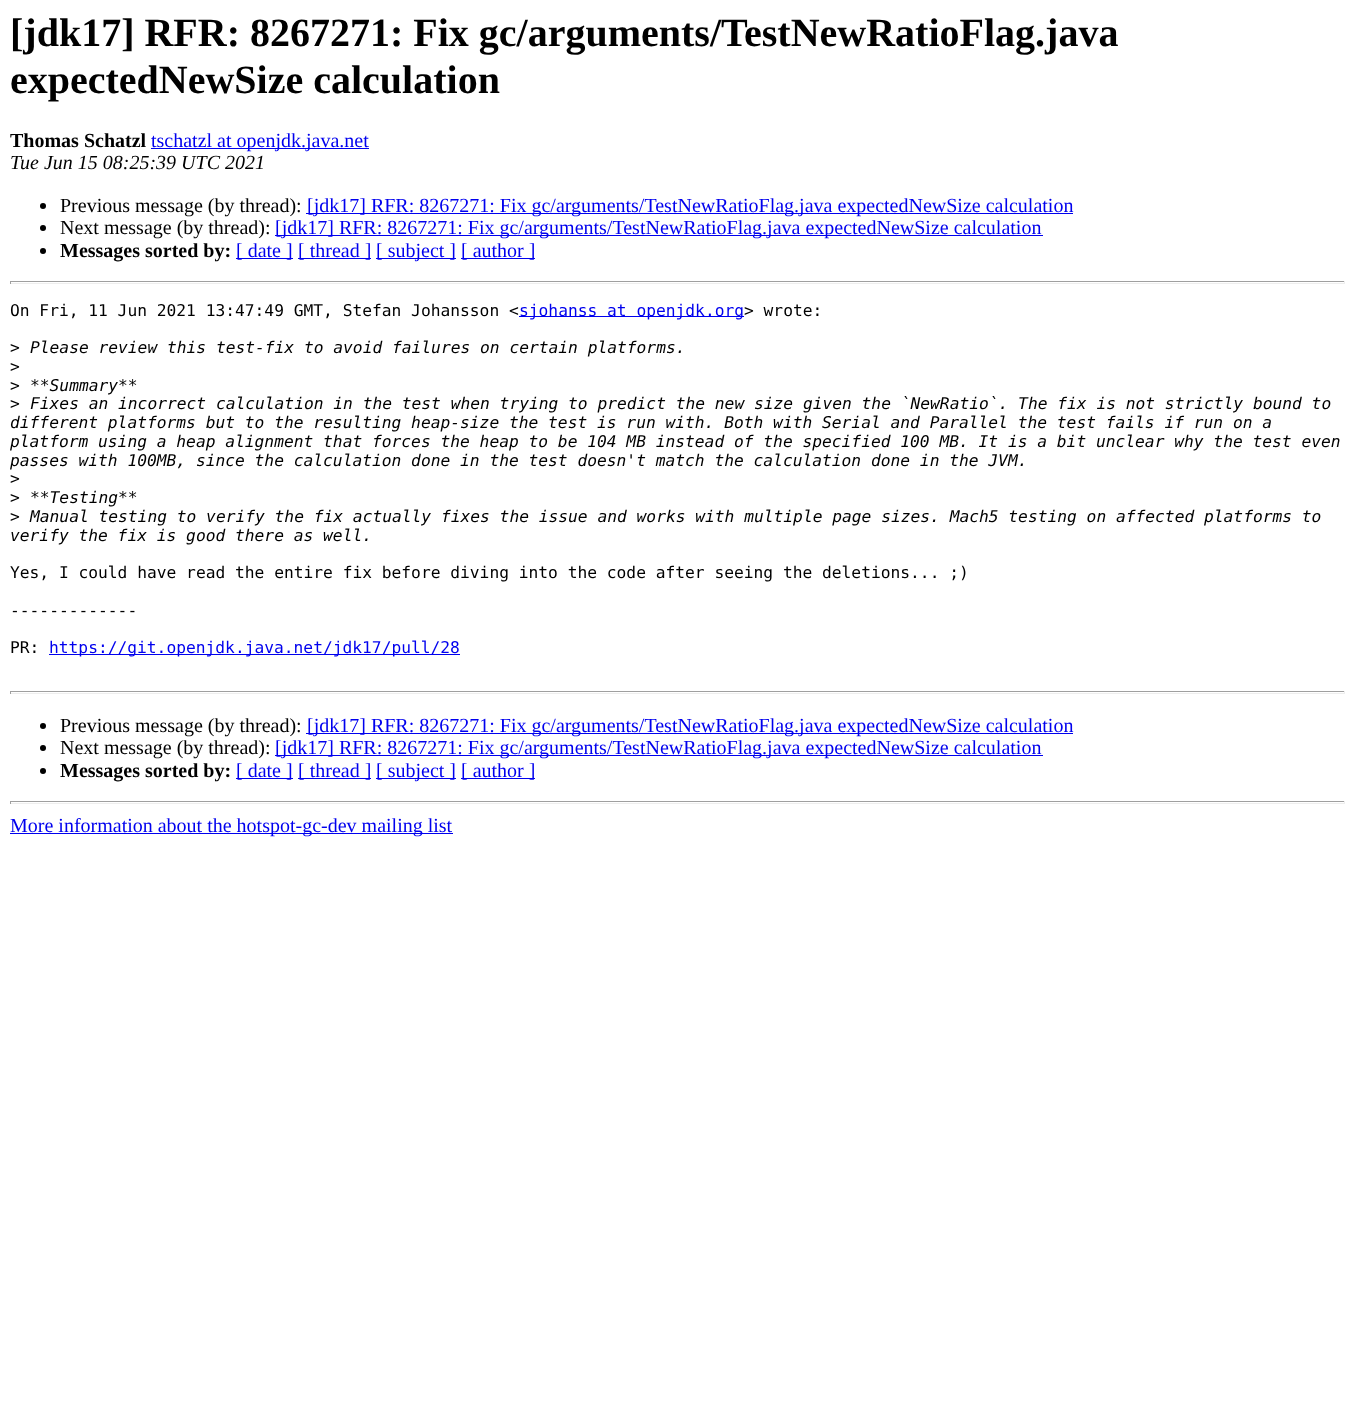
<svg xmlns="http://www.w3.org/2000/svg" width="1354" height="1424">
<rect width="100%" height="100%" fill="#fff"/>
<text x="10" y="46" style="font-family:Liberation Serif;font-size:40px;font-weight:bold;fill:#000">[jdk17] RFR: 8267271: Fix gc/arguments/TestNewRatioFlag.java</text>
<text x="10" y="93" style="font-family:Liberation Serif;font-size:40px;font-weight:bold;fill:#000">expectedNewSize calculation</text>
<text x="10" y="147" style="font-family:Liberation Serif;font-size:20px;font-weight:bold;fill:#000">Thomas Schatzl</text>
<rect x="151" y="148" width="218" height="1" fill="#00e"/>
<text x="151" y="147" style="font-family:Liberation Serif;font-size:20px;fill:#00e">tschatzl at openjdk.java.net</text>
<text x="10" y="169" style="font-family:Liberation Serif;font-size:20px;font-style:italic;fill:#000">Tue Jun 15 08:25:39 UTC 2021</text>
<circle cx="43" cy="206" r="3" fill="#000"/>
<text x="60" y="212" style="font-family:Liberation Serif;font-size:20px;fill:#000">Previous message (by thread):</text>
<rect x="306" y="213" width="767" height="1" fill="#00e"/>
<text x="307" y="212" style="font-family:Liberation Serif;font-size:20px;fill:#00e">[jdk17] RFR: 8267271: Fix gc/arguments/TestNewRatioFlag.java expectedNewSize calculation</text>
<circle cx="43" cy="228" r="3" fill="#000"/>
<text x="60" y="234" style="font-family:Liberation Serif;font-size:20px;fill:#000">Next message (by thread):</text>
<rect x="275" y="235" width="768" height="1" fill="#00e"/>
<text x="275" y="234" style="font-family:Liberation Serif;font-size:20px;fill:#00e">[jdk17] RFR: 8267271: Fix gc/arguments/TestNewRatioFlag.java expectedNewSize calculation</text>
<circle cx="43" cy="251" r="3" fill="#000"/>
<text x="60" y="257" style="font-family:Liberation Serif;font-size:20px;font-weight:bold;fill:#000">Messages sorted by:</text>
<rect x="236" y="258" width="57" height="1" fill="#00e"/>
<text x="236" y="257" style="font-family:Liberation Serif;font-size:20px;fill:#00e">[ date ]</text>
<rect x="298" y="258" width="73" height="1" fill="#00e"/>
<text x="298" y="257" style="font-family:Liberation Serif;font-size:20px;fill:#00e">[ thread ]</text>
<rect x="376" y="258" width="80" height="1" fill="#00e"/>
<text x="376" y="257" style="font-family:Liberation Serif;font-size:20px;fill:#00e">[ subject ]</text>
<rect x="461" y="258" width="74" height="1" fill="#00e"/>
<text x="461" y="257" style="font-family:Liberation Serif;font-size:20px;fill:#00e">[ author ]</text>
<rect x="10" y="281" width="1335" height="1" fill="#9f9f9f"/>
<rect x="1344" y="281" width="1" height="3" fill="#eee"/>
<rect x="10" y="283" width="1335" height="1" fill="#eee"/>
<rect x="10" y="281" width="1" height="3" fill="#9f9f9f"/>
<text x="10" y="316" style="font-family:DejaVu Sans Mono;font-size:16.25px;fill:#000">On Fri, 11 Jun 2021 13:47:49 GMT, Stefan Johansson &lt;</text>
<rect x="519" y="316" width="225" height="1" fill="#00e"/>
<text x="519" y="316" style="font-family:DejaVu Sans Mono;font-size:16.25px;fill:#00e">sjohanss at openjdk.org</text>
<text x="744" y="316" style="font-family:DejaVu Sans Mono;font-size:16.25px;fill:#000">&gt; wrote:</text>
<text x="10" y="353" style="font-family:DejaVu Sans Mono;font-size:16.25px;fill:#000">&gt;</text>
<text x="30" y="353" style="font-family:DejaVu Sans Mono;font-size:16.25px;font-style:italic;fill:#000">Please review this test-fix to avoid failures on certain platforms.</text>
<text x="10" y="372" style="font-family:DejaVu Sans Mono;font-size:16.25px;fill:#000">&gt;</text>
<text x="10" y="391" style="font-family:DejaVu Sans Mono;font-size:16.25px;fill:#000">&gt;</text>
<text x="30" y="391" style="font-family:DejaVu Sans Mono;font-size:16.25px;font-style:italic;fill:#000">**Summary**</text>
<text x="10" y="409" style="font-family:DejaVu Sans Mono;font-size:16.25px;fill:#000">&gt;</text>
<text x="30" y="409" style="font-family:DejaVu Sans Mono;font-size:16.25px;font-style:italic;fill:#000">Fixes an incorrect calculation in the test when trying to predict the new size given the `NewRatio`. The fix is not strictly bound to</text>
<text x="10" y="428" style="font-family:DejaVu Sans Mono;font-size:16.25px;font-style:italic;fill:#000">different platforms but to the resulting heap-size the test is run with. Both with Serial and Parallel the test fails if run on a</text>
<text x="10" y="447" style="font-family:DejaVu Sans Mono;font-size:16.25px;font-style:italic;fill:#000">platform using a heap alignment that forces the heap to be 104 MB instead of the specified 100 MB. It is a bit unclear why the test even</text>
<text x="10" y="466" style="font-family:DejaVu Sans Mono;font-size:16.25px;font-style:italic;fill:#000">passes with 100MB, since the calculation done in the test doesn't match the calculation done in the JVM.</text>
<text x="10" y="484" style="font-family:DejaVu Sans Mono;font-size:16.25px;fill:#000">&gt;</text>
<text x="10" y="503" style="font-family:DejaVu Sans Mono;font-size:16.25px;fill:#000">&gt;</text>
<text x="30" y="503" style="font-family:DejaVu Sans Mono;font-size:16.25px;font-style:italic;fill:#000">**Testing**</text>
<text x="10" y="522" style="font-family:DejaVu Sans Mono;font-size:16.25px;fill:#000">&gt;</text>
<text x="30" y="522" style="font-family:DejaVu Sans Mono;font-size:16.25px;font-style:italic;fill:#000">Manual testing to verify the fix actually fixes the issue and works with multiple page sizes. Mach5 testing on affected platforms to</text>
<text x="10" y="541" style="font-family:DejaVu Sans Mono;font-size:16.25px;font-style:italic;fill:#000">verify the fix is good there as well.</text>
<text x="10" y="578" style="font-family:DejaVu Sans Mono;font-size:16.25px;fill:#000">Yes, I could have read the entire fix before diving into the code after seeing the deletions... ;)</text>
<text x="10" y="616" style="font-family:DejaVu Sans Mono;font-size:16.25px;fill:#000">-------------</text>
<text x="10" y="653" style="font-family:DejaVu Sans Mono;font-size:16.25px;fill:#000">PR:</text>
<rect x="49" y="654" width="411" height="1" fill="#00e"/>
<text x="49" y="653" style="font-family:DejaVu Sans Mono;font-size:16.25px;fill:#00e">https://git.openjdk.java.net/jdk17/pull/28</text>
<rect x="10" y="691" width="1335" height="1" fill="#9f9f9f"/>
<rect x="1344" y="691" width="1" height="3" fill="#eee"/>
<rect x="10" y="693" width="1335" height="1" fill="#eee"/>
<rect x="10" y="691" width="1" height="3" fill="#9f9f9f"/>
<circle cx="43" cy="726" r="3" fill="#000"/>
<text x="60" y="732" style="font-family:Liberation Serif;font-size:20px;fill:#000">Previous message (by thread):</text>
<rect x="306" y="733" width="767" height="1" fill="#00e"/>
<text x="307" y="732" style="font-family:Liberation Serif;font-size:20px;fill:#00e">[jdk17] RFR: 8267271: Fix gc/arguments/TestNewRatioFlag.java expectedNewSize calculation</text>
<circle cx="43" cy="748" r="3" fill="#000"/>
<text x="60" y="754" style="font-family:Liberation Serif;font-size:20px;fill:#000">Next message (by thread):</text>
<rect x="275" y="755" width="768" height="1" fill="#00e"/>
<text x="275" y="754" style="font-family:Liberation Serif;font-size:20px;fill:#00e">[jdk17] RFR: 8267271: Fix gc/arguments/TestNewRatioFlag.java expectedNewSize calculation</text>
<circle cx="43" cy="771" r="3" fill="#000"/>
<text x="60" y="777" style="font-family:Liberation Serif;font-size:20px;font-weight:bold;fill:#000">Messages sorted by:</text>
<rect x="236" y="778" width="57" height="1" fill="#00e"/>
<text x="236" y="777" style="font-family:Liberation Serif;font-size:20px;fill:#00e">[ date ]</text>
<rect x="298" y="778" width="73" height="1" fill="#00e"/>
<text x="298" y="777" style="font-family:Liberation Serif;font-size:20px;fill:#00e">[ thread ]</text>
<rect x="376" y="778" width="80" height="1" fill="#00e"/>
<text x="376" y="777" style="font-family:Liberation Serif;font-size:20px;fill:#00e">[ subject ]</text>
<rect x="461" y="778" width="74" height="1" fill="#00e"/>
<text x="461" y="777" style="font-family:Liberation Serif;font-size:20px;fill:#00e">[ author ]</text>
<rect x="10" y="801" width="1335" height="1" fill="#9f9f9f"/>
<rect x="1344" y="801" width="1" height="3" fill="#eee"/>
<rect x="10" y="803" width="1335" height="1" fill="#eee"/>
<rect x="10" y="801" width="1" height="3" fill="#9f9f9f"/>
<rect x="10" y="833" width="443" height="1" fill="#00e"/>
<text x="10" y="832" style="font-family:Liberation Serif;font-size:20px;fill:#00e">More information about the hotspot-gc-dev mailing list</text>
</svg>
